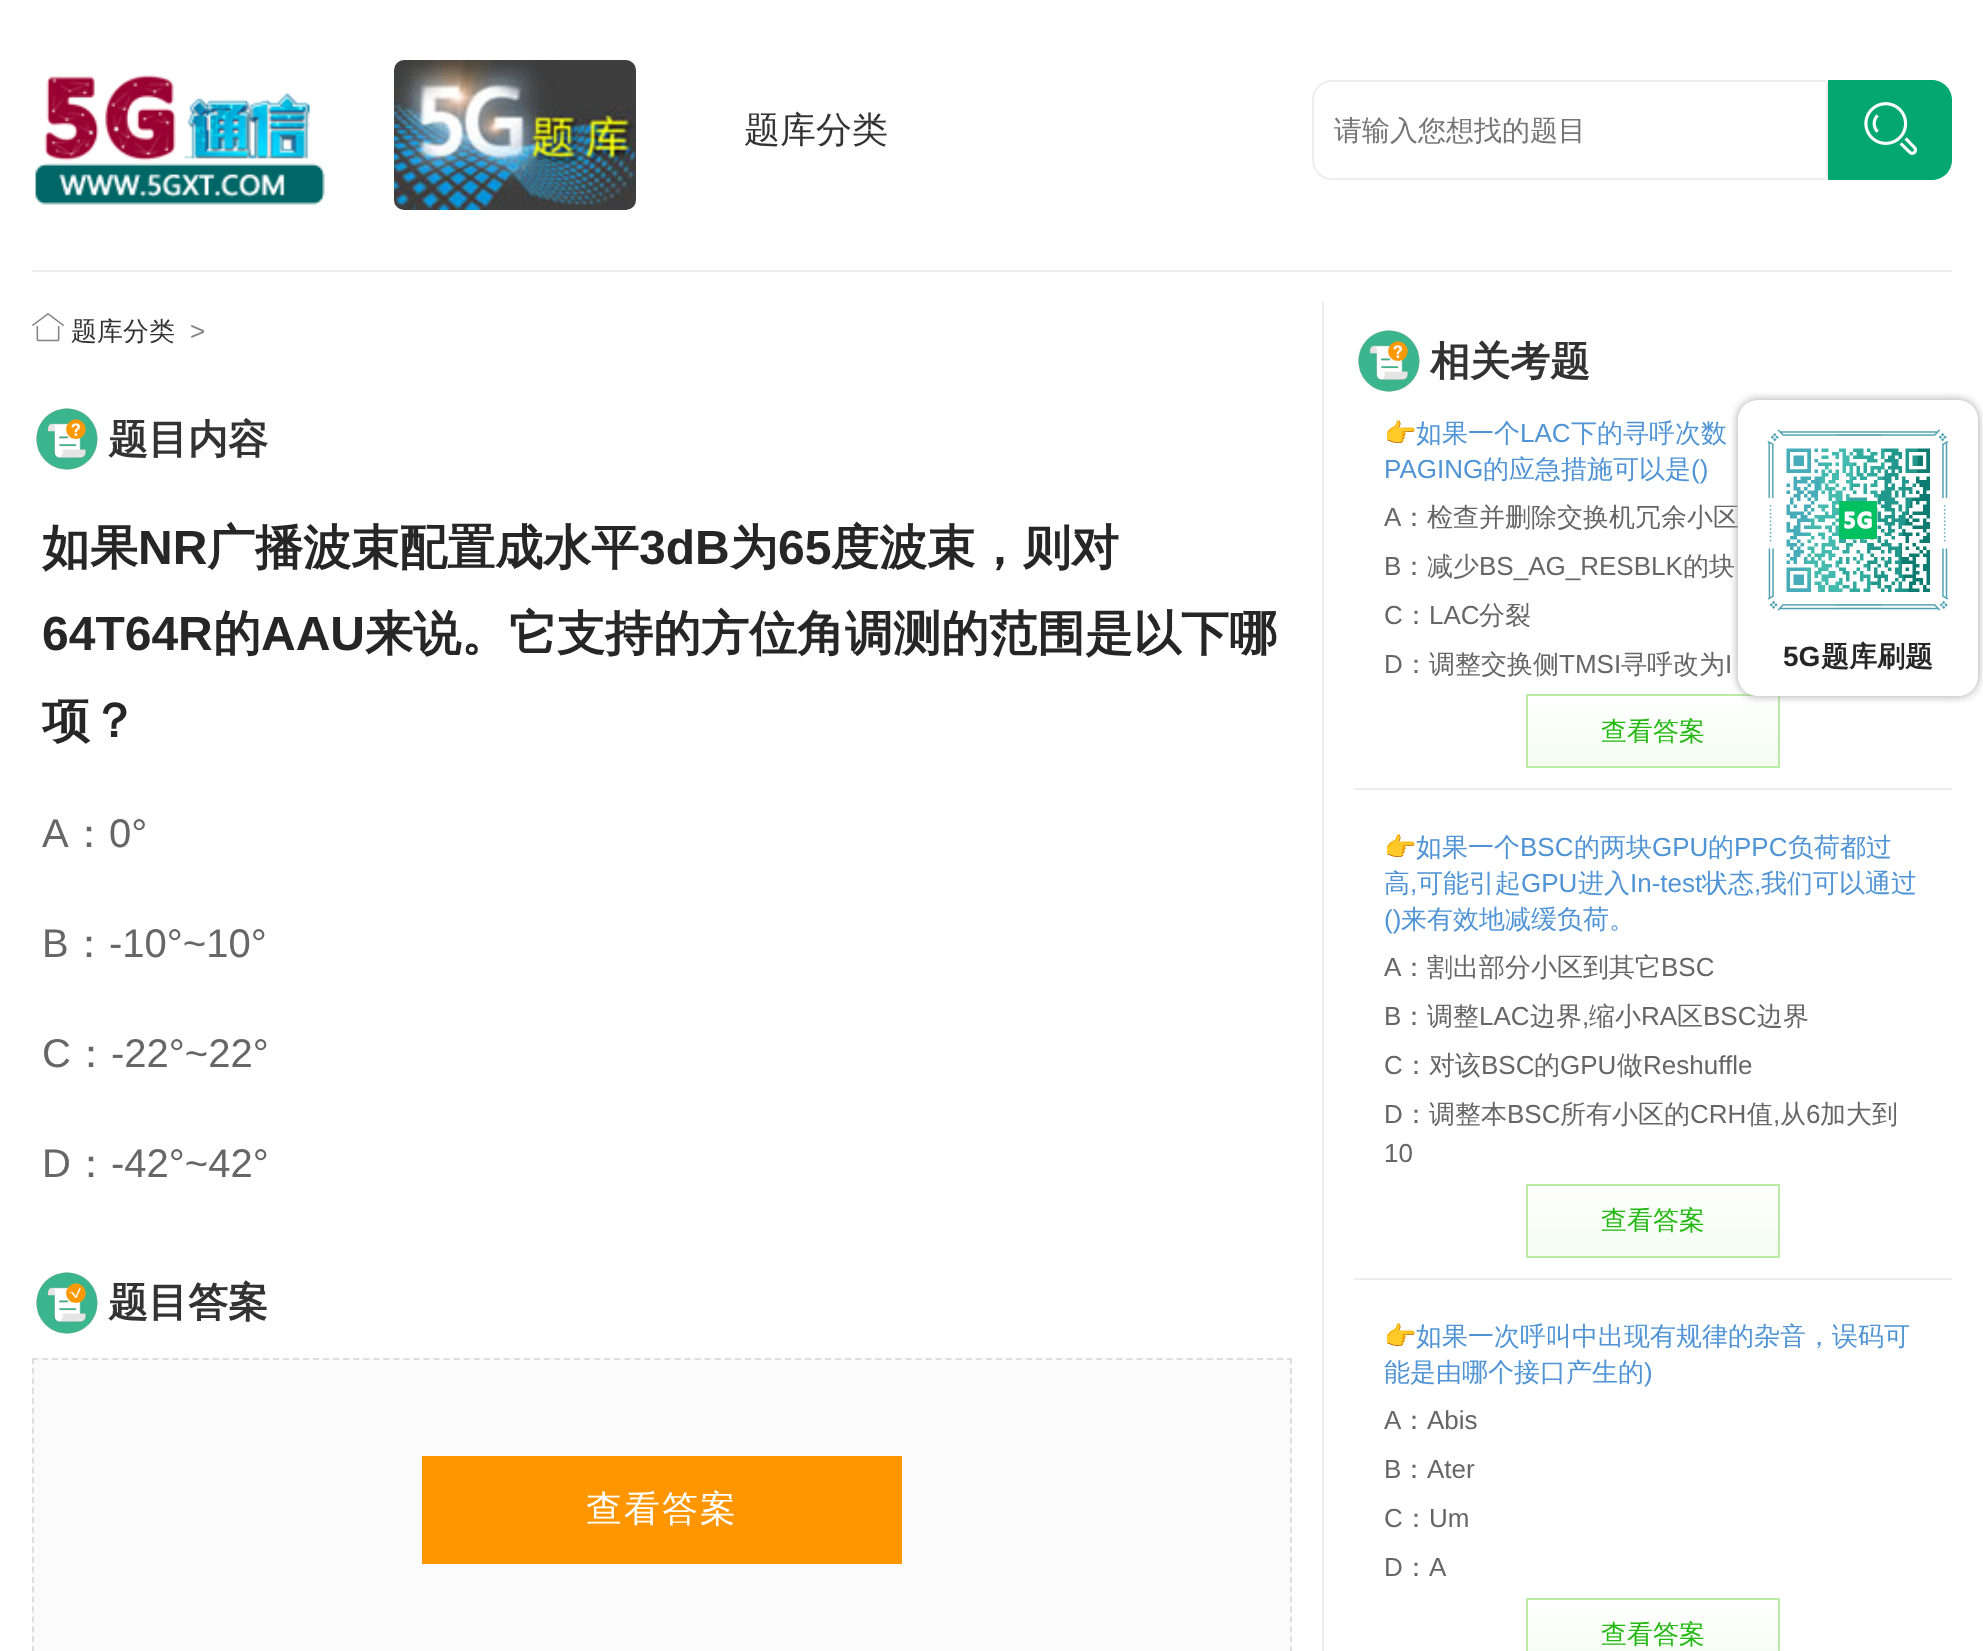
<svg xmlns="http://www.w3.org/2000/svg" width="1983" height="1651">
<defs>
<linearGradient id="g1" gradientUnits="userSpaceOnUse" x1="1653" y1="696" x2="1653" y2="766"><stop offset="0" stop-color="#fefffe"/><stop offset="1" stop-color="#f4fdf0"/></linearGradient>
<linearGradient id="g2" gradientUnits="userSpaceOnUse" x1="1653" y1="1186" x2="1653" y2="1256"><stop offset="0" stop-color="#fefffe"/><stop offset="1" stop-color="#f4fdf0"/></linearGradient>
<linearGradient id="g3" gradientUnits="userSpaceOnUse" x1="1653" y1="1600" x2="1653" y2="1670"><stop offset="0" stop-color="#fefffe"/><stop offset="1" stop-color="#f4fdf0"/></linearGradient>
</defs>
<rect width="100%" height="100%" fill="#fff"/>
<rect x="32" y="270" width="1920" height="2" fill="#eee"/>
<image x="35" y="75" width="290" height="130" href="media/1.png"/>
<image x="394" y="60" width="242" height="150" href="media/2.png"/>
<text x="744" y="142" style="font-family:WenQuanYi Zen Hei;font-size:36px;font-weight:500;fill:#333">题库分类</text>
<path d="M1332 81h492c1.5 0 3 1.5 3 3v92c0 1.5-1.5 3-3 3h-492c-10.5 0-19-8.5-19-19v-60c0-10.5 8.5-19 19-19z" fill="none" stroke="#eee" stroke-width="2"/>
<text x="1334" y="140" style="font-family:WenQuanYi Zen Hei;font-size:28px;font-weight:500;fill:#757575">请输入您想找的题目</text>
<path d="M1828 80h104c11 0 20 9 20 20v60c0 11-9 20-20 20h-104z" fill="#03a76f"/>
<image x="1864" y="102" width="53" height="53" href="media/3.png"/>
<image x="32" y="313" width="32" height="29" href="media/4.png"/>
<text x="71" y="340" style="font-family:WenQuanYi Zen Hei;font-size:26px;font-weight:500;fill:#333">题库分类</text>
<text x="190" y="340" style="font-family:Liberation Sans;font-size:26px;fill:#848484">&gt;</text>
<image x="36" y="408" width="62" height="62" href="media/5.png"/>
<text x="108" y="453" style="font-family:WenQuanYi Zen Hei;font-size:40px;font-weight:bold;fill:#333">题目内容</text>
<text x="42" y="564" style="font-family:WenQuanYi Zen Hei;font-size:48px;font-weight:bold;fill:#262626">如果</text>
<text x="138" y="564" style="font-family:Liberation Sans;font-size:48px;font-weight:bold;fill:#262626">NR</text>
<text x="207" y="564" style="font-family:WenQuanYi Zen Hei;font-size:48px;font-weight:bold;fill:#262626">广播波束配置成水平</text>
<text x="639" y="564" style="font-family:Liberation Sans;font-size:48px;font-weight:bold;fill:#262626">3dB</text>
<text x="730" y="564" style="font-family:WenQuanYi Zen Hei;font-size:48px;font-weight:bold;fill:#262626">为</text>
<text x="778" y="564" style="font-family:Liberation Sans;font-size:48px;font-weight:bold;fill:#262626">65</text>
<text x="831" y="564" style="font-family:WenQuanYi Zen Hei;font-size:48px;font-weight:bold;fill:#262626">度波束，则对</text>
<text x="42" y="650" style="font-family:Liberation Sans;font-size:48px;font-weight:bold;fill:#262626">64T64R</text>
<text x="213" y="650" style="font-family:WenQuanYi Zen Hei;font-size:48px;font-weight:bold;fill:#262626">的</text>
<text x="261" y="650" style="font-family:Liberation Sans;font-size:48px;font-weight:bold;fill:#262626">AAU</text>
<text x="365" y="650" style="font-family:WenQuanYi Zen Hei;font-size:48px;font-weight:bold;fill:#262626">来说。它支持的方位角调测的范围是以下哪</text>
<text x="42" y="737" style="font-family:WenQuanYi Zen Hei;font-size:48px;font-weight:bold;fill:#262626">项？</text>
<text x="42" y="847" style="font-family:Liberation Sans;font-size:40px;fill:#666">A</text>
<text x="69" y="847" style="font-family:WenQuanYi Zen Hei;font-size:40px;font-weight:500;fill:#666">：</text>
<text x="109" y="847" style="font-family:Liberation Sans;font-size:40px;fill:#666">0°</text>
<text x="42" y="957" style="font-family:Liberation Sans;font-size:40px;fill:#666">B</text>
<text x="69" y="957" style="font-family:WenQuanYi Zen Hei;font-size:40px;font-weight:500;fill:#666">：</text>
<text x="109" y="957" style="font-family:Liberation Sans;font-size:40px;fill:#666">-10°~10°</text>
<text x="42" y="1067" style="font-family:Liberation Sans;font-size:40px;fill:#666">C</text>
<text x="71" y="1067" style="font-family:WenQuanYi Zen Hei;font-size:40px;font-weight:500;fill:#666">：</text>
<text x="111" y="1067" style="font-family:Liberation Sans;font-size:40px;fill:#666">-22°~22°</text>
<text x="42" y="1177" style="font-family:Liberation Sans;font-size:40px;fill:#666">D</text>
<text x="71" y="1177" style="font-family:WenQuanYi Zen Hei;font-size:40px;font-weight:500;fill:#666">：</text>
<text x="111" y="1177" style="font-family:Liberation Sans;font-size:40px;fill:#666">-42°~42°</text>
<image x="36" y="1272" width="62" height="62" href="media/6.png"/>
<text x="108" y="1316" style="font-family:WenQuanYi Zen Hei;font-size:40px;font-weight:bold;fill:#333">题目答案</text>
<rect x="32" y="1358" width="1260" height="293" fill="#fbfbfb"/>
<path d="M32 1359h1260" fill="none" stroke="#dedede" stroke-width="2" stroke-dasharray="6 4.04"/>
<path d="M1291 1358v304" fill="none" stroke="#dedede" stroke-width="2" stroke-dasharray="6 3.94"/>
<path d="M33 1358v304" fill="none" stroke="#dedede" stroke-width="2" stroke-dasharray="6 3.94"/>
<rect x="422" y="1456" width="480" height="108" fill="#ff9600"/>
<text x="586" y="1521" style="font-family:WenQuanYi Zen Hei;font-size:36px;font-weight:500;letter-spacing:2px;fill:#fff">查看答案</text>
<rect x="1322" y="302" width="2" height="1349" fill="#ededed"/>
<image x="1358" y="330" width="62" height="62" href="media/7.png"/>
<text x="1430" y="375" style="font-family:WenQuanYi Zen Hei;font-size:40px;font-weight:bold;fill:#333">相关考题</text>
<rect x="1354" y="788" width="598" height="2" fill="#ededed"/>
<text x="1384" y="442" style="font-family:Noto Color Emoji;font-size:26px;fill:#5094d5">👉</text>
<text x="1416" y="442" style="font-family:WenQuanYi Zen Hei;font-size:26px;font-weight:500;fill:#5094d5">如果一个</text>
<text x="1520" y="442" style="font-family:Liberation Sans;font-size:26px;fill:#5094d5">LAC</text>
<text x="1571" y="442" style="font-family:WenQuanYi Zen Hei;font-size:26px;font-weight:500;fill:#5094d5">下的寻呼次数</text>
<text x="1384" y="478" style="font-family:Liberation Sans;font-size:26px;fill:#5094d5">PAGING</text>
<text x="1483" y="478" style="font-family:WenQuanYi Zen Hei;font-size:26px;font-weight:500;fill:#5094d5">的应急措施可以是</text>
<text x="1691" y="478" style="font-family:Liberation Sans;font-size:26px;fill:#5094d5">()</text>
<text x="1384" y="526" style="font-family:Liberation Sans;font-size:26px;fill:#666">A</text>
<text x="1401" y="526" style="font-family:WenQuanYi Zen Hei;font-size:26px;font-weight:500;fill:#666">：检查并删除交换机冗余小区</text>
<text x="1384" y="575" style="font-family:Liberation Sans;font-size:26px;fill:#666">B</text>
<text x="1401" y="575" style="font-family:WenQuanYi Zen Hei;font-size:26px;font-weight:500;fill:#666">：减少</text>
<text x="1479" y="575" style="font-family:Liberation Sans;font-size:26px;fill:#666">BS_AG_RESBLK</text>
<text x="1683" y="575" style="font-family:WenQuanYi Zen Hei;font-size:26px;font-weight:500;fill:#666">的块</text>
<text x="1384" y="624" style="font-family:Liberation Sans;font-size:26px;fill:#666">C</text>
<text x="1403" y="624" style="font-family:WenQuanYi Zen Hei;font-size:26px;font-weight:500;fill:#666">：</text>
<text x="1429" y="624" style="font-family:Liberation Sans;font-size:26px;fill:#666">LAC</text>
<text x="1479" y="624" style="font-family:WenQuanYi Zen Hei;font-size:26px;font-weight:500;fill:#666">分裂</text>
<text x="1384" y="673" style="font-family:Liberation Sans;font-size:26px;fill:#666">D</text>
<text x="1403" y="673" style="font-family:WenQuanYi Zen Hei;font-size:26px;font-weight:500;fill:#666">：调整交换侧</text>
<text x="1559" y="673" style="font-family:Liberation Sans;font-size:26px;fill:#666">TMSI</text>
<text x="1621" y="673" style="font-family:WenQuanYi Zen Hei;font-size:26px;font-weight:500;fill:#666">寻呼改为</text>
<text x="1725" y="673" style="font-family:Liberation Sans;font-size:26px;fill:#666">I</text>
<rect x="1528" y="704" width="250" height="62" fill="url(#g1)"/>
<rect x="1527" y="695" width="252" height="72" fill="none" stroke="#baeca5" stroke-width="2"/>
<text x="1601" y="740" style="font-family:WenQuanYi Zen Hei;font-size:26px;font-weight:500;fill:#23b912">查看答案</text>
<rect x="1354" y="1278" width="598" height="2" fill="#ededed"/>
<text x="1384" y="856" style="font-family:Noto Color Emoji;font-size:26px;fill:#5094d5">👉</text>
<text x="1416" y="856" style="font-family:WenQuanYi Zen Hei;font-size:26px;font-weight:500;fill:#5094d5">如果一个</text>
<text x="1520" y="856" style="font-family:Liberation Sans;font-size:26px;fill:#5094d5">BSC</text>
<text x="1574" y="856" style="font-family:WenQuanYi Zen Hei;font-size:26px;font-weight:500;fill:#5094d5">的两块</text>
<text x="1652" y="856" style="font-family:Liberation Sans;font-size:26px;fill:#5094d5">GPU</text>
<text x="1708" y="856" style="font-family:WenQuanYi Zen Hei;font-size:26px;font-weight:500;fill:#5094d5">的</text>
<text x="1734" y="856" style="font-family:Liberation Sans;font-size:26px;fill:#5094d5">PPC</text>
<text x="1788" y="856" style="font-family:WenQuanYi Zen Hei;font-size:26px;font-weight:500;fill:#5094d5">负荷都过</text>
<text x="1384" y="892" style="font-family:WenQuanYi Zen Hei;font-size:26px;font-weight:500;fill:#5094d5">高</text>
<text x="1410" y="892" style="font-family:Liberation Sans;font-size:26px;fill:#5094d5">,</text>
<text x="1417" y="892" style="font-family:WenQuanYi Zen Hei;font-size:26px;font-weight:500;fill:#5094d5">可能引起</text>
<text x="1521" y="892" style="font-family:Liberation Sans;font-size:26px;fill:#5094d5">GPU</text>
<text x="1578" y="892" style="font-family:WenQuanYi Zen Hei;font-size:26px;font-weight:500;fill:#5094d5">进入</text>
<text x="1630" y="892" style="font-family:Liberation Sans;font-size:26px;fill:#5094d5">In-test</text>
<text x="1702" y="892" style="font-family:WenQuanYi Zen Hei;font-size:26px;font-weight:500;fill:#5094d5">状态</text>
<text x="1754" y="892" style="font-family:Liberation Sans;font-size:26px;fill:#5094d5">,</text>
<text x="1761" y="892" style="font-family:WenQuanYi Zen Hei;font-size:26px;font-weight:500;fill:#5094d5">我们可以通过</text>
<text x="1384" y="928" style="font-family:Liberation Sans;font-size:26px;fill:#5094d5">()</text>
<text x="1401" y="928" style="font-family:WenQuanYi Zen Hei;font-size:26px;font-weight:500;fill:#5094d5">来有效地减缓负荷。</text>
<text x="1384" y="976" style="font-family:Liberation Sans;font-size:26px;fill:#666">A</text>
<text x="1401" y="976" style="font-family:WenQuanYi Zen Hei;font-size:26px;font-weight:500;fill:#666">：割出部分小区到其它</text>
<text x="1661" y="976" style="font-family:Liberation Sans;font-size:26px;fill:#666">BSC</text>
<text x="1384" y="1025" style="font-family:Liberation Sans;font-size:26px;fill:#666">B</text>
<text x="1401" y="1025" style="font-family:WenQuanYi Zen Hei;font-size:26px;font-weight:500;fill:#666">：调整</text>
<text x="1479" y="1025" style="font-family:Liberation Sans;font-size:26px;fill:#666">LAC</text>
<text x="1530" y="1025" style="font-family:WenQuanYi Zen Hei;font-size:26px;font-weight:500;fill:#666">边界</text>
<text x="1582" y="1025" style="font-family:Liberation Sans;font-size:26px;fill:#666">,</text>
<text x="1589" y="1025" style="font-family:WenQuanYi Zen Hei;font-size:26px;font-weight:500;fill:#666">缩小</text>
<text x="1641" y="1025" style="font-family:Liberation Sans;font-size:26px;fill:#666">RA</text>
<text x="1677" y="1025" style="font-family:WenQuanYi Zen Hei;font-size:26px;font-weight:500;fill:#666">区</text>
<text x="1703" y="1025" style="font-family:Liberation Sans;font-size:26px;fill:#666">BSC</text>
<text x="1757" y="1025" style="font-family:WenQuanYi Zen Hei;font-size:26px;font-weight:500;fill:#666">边界</text>
<text x="1384" y="1074" style="font-family:Liberation Sans;font-size:26px;fill:#666">C</text>
<text x="1403" y="1074" style="font-family:WenQuanYi Zen Hei;font-size:26px;font-weight:500;fill:#666">：对该</text>
<text x="1481" y="1074" style="font-family:Liberation Sans;font-size:26px;fill:#666">BSC</text>
<text x="1534" y="1074" style="font-family:WenQuanYi Zen Hei;font-size:26px;font-weight:500;fill:#666">的</text>
<text x="1560" y="1074" style="font-family:Liberation Sans;font-size:26px;fill:#666">GPU</text>
<text x="1617" y="1074" style="font-family:WenQuanYi Zen Hei;font-size:26px;font-weight:500;fill:#666">做</text>
<text x="1643" y="1074" style="font-family:Liberation Sans;font-size:26px;fill:#666">Reshuffle</text>
<text x="1384" y="1123" style="font-family:Liberation Sans;font-size:26px;fill:#666">D</text>
<text x="1403" y="1123" style="font-family:WenQuanYi Zen Hei;font-size:26px;font-weight:500;fill:#666">：调整本</text>
<text x="1507" y="1123" style="font-family:Liberation Sans;font-size:26px;fill:#666">BSC</text>
<text x="1560" y="1123" style="font-family:WenQuanYi Zen Hei;font-size:26px;font-weight:500;fill:#666">所有小区的</text>
<text x="1690" y="1123" style="font-family:Liberation Sans;font-size:26px;fill:#666">CRH</text>
<text x="1747" y="1123" style="font-family:WenQuanYi Zen Hei;font-size:26px;font-weight:500;fill:#666">值</text>
<text x="1773" y="1123" style="font-family:Liberation Sans;font-size:26px;fill:#666">,</text>
<text x="1780" y="1123" style="font-family:WenQuanYi Zen Hei;font-size:26px;font-weight:500;fill:#666">从</text>
<text x="1806" y="1123" style="font-family:Liberation Sans;font-size:26px;fill:#666">6</text>
<text x="1820" y="1123" style="font-family:WenQuanYi Zen Hei;font-size:26px;font-weight:500;fill:#666">加大到</text>
<text x="1384" y="1162" style="font-family:Liberation Sans;font-size:26px;fill:#666">10</text>
<rect x="1528" y="1194" width="250" height="62" fill="url(#g2)"/>
<rect x="1527" y="1185" width="252" height="72" fill="none" stroke="#baeca5" stroke-width="2"/>
<text x="1601" y="1229" style="font-family:WenQuanYi Zen Hei;font-size:26px;font-weight:500;fill:#23b912">查看答案</text>
<text x="1384" y="1345" style="font-family:Noto Color Emoji;font-size:26px;fill:#5094d5">👉</text>
<text x="1416" y="1345" style="font-family:WenQuanYi Zen Hei;font-size:26px;font-weight:500;fill:#5094d5">如果一次呼叫中出现有规律的杂音，误码可</text>
<text x="1384" y="1381" style="font-family:WenQuanYi Zen Hei;font-size:26px;font-weight:500;fill:#5094d5">能是由哪个接口产生的</text>
<text x="1644" y="1381" style="font-family:Liberation Sans;font-size:26px;fill:#5094d5">)</text>
<text x="1384" y="1429" style="font-family:Liberation Sans;font-size:26px;fill:#666">A</text>
<text x="1401" y="1429" style="font-family:WenQuanYi Zen Hei;font-size:26px;font-weight:500;fill:#666">：</text>
<text x="1427" y="1429" style="font-family:Liberation Sans;font-size:26px;fill:#666">Abis</text>
<text x="1384" y="1478" style="font-family:Liberation Sans;font-size:26px;fill:#666">B</text>
<text x="1401" y="1478" style="font-family:WenQuanYi Zen Hei;font-size:26px;font-weight:500;fill:#666">：</text>
<text x="1427" y="1478" style="font-family:Liberation Sans;font-size:26px;fill:#666">Ater</text>
<text x="1384" y="1527" style="font-family:Liberation Sans;font-size:26px;fill:#666">C</text>
<text x="1403" y="1527" style="font-family:WenQuanYi Zen Hei;font-size:26px;font-weight:500;fill:#666">：</text>
<text x="1429" y="1527" style="font-family:Liberation Sans;font-size:26px;fill:#666">Um</text>
<text x="1384" y="1576" style="font-family:Liberation Sans;font-size:26px;fill:#666">D</text>
<text x="1403" y="1576" style="font-family:WenQuanYi Zen Hei;font-size:26px;font-weight:500;fill:#666">：</text>
<text x="1429" y="1576" style="font-family:Liberation Sans;font-size:26px;fill:#666">A</text>
<rect x="1528" y="1608" width="250" height="43" fill="url(#g3)"/>
<rect x="1527" y="1599" width="252" height="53" fill="none" stroke="#baeca5" stroke-width="2"/>
<text x="1601" y="1643" style="font-family:WenQuanYi Zen Hei;font-size:26px;font-weight:500;fill:#23b912">查看答案</text>
<rect x="1738" y="400" width="240" height="296" rx="20" fill="#a3a3a3" filter="blur(5px)"/>
<rect x="1738" y="400" width="240" height="296" rx="20" fill="#fff"/>
<image x="1767" y="429" width="182" height="182" href="media/8.png"/>
<text x="1783" y="666" style="font-family:Liberation Sans;font-size:28px;font-weight:bold;fill:#262626">5G</text>
<text x="1821" y="666" style="font-family:WenQuanYi Zen Hei;font-size:28px;font-weight:bold;fill:#262626">题库刷题</text>
</svg>
